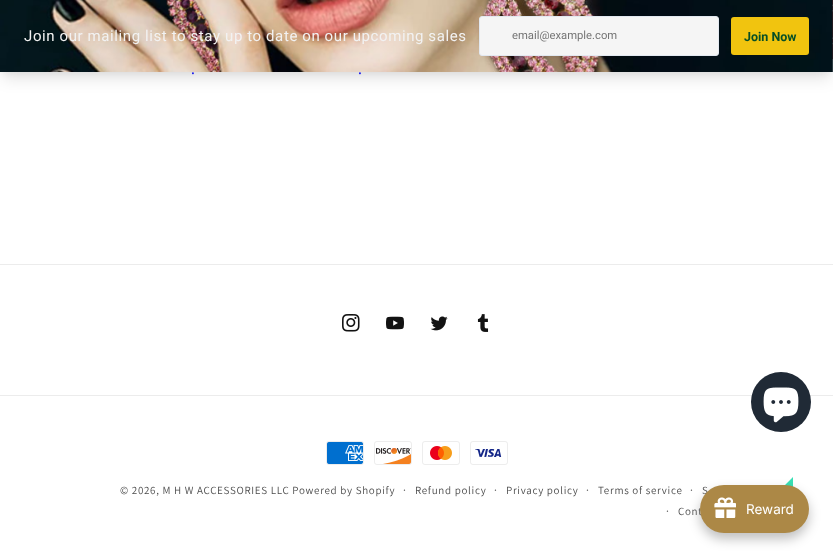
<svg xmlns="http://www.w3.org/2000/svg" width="833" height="557">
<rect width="100%" height="100%" fill="#fff"/>
<image x="832" y="0" width="1" height="59" href="media/2.png"/>
<rect x="2" y="6" width="829" height="68" fill="#0000000d" filter="blur(3px)"/>
<rect x="3" y="13" width="827" height="66" fill="#0000001a" filter="blur(7.5px)"/>
<image x="0" y="0" width="833" height="72" href="media/1.png"/>
<text x="24" y="41" style="font-family:Roboto;font-size:15px;letter-spacing:0.6px;fill:#f2f2f2">Join our mailing list to stay up to date on our upcoming sales</text>
<rect x="479.5" y="16.5" width="239" height="39" rx="2.5" fill="#f5f5f5" stroke="#e2e8f0"/>
<text x="512" y="39" style="font-family:Roboto;font-size:11.25px;fill:#757575">email@example.com</text>
<rect x="731" y="17" width="78" height="38" rx="3" fill="#f1c40f"/>
<text x="744" y="41" style="font-family:Roboto;font-size:12.5px;font-weight:bold;fill:#064f26">Join Now</text>
<text x="191" y="74" style="font-family:Assistant;font-size:16px;letter-spacing:0.6px;fill:#00e">.</text>
<text x="358" y="74" style="font-family:Assistant;font-size:16px;letter-spacing:0.6px;fill:#00e">.</text>
<rect y="395" width="833" height="1" fill="#ececec"/>
<circle cx="781" cy="402" r="30" fill="#202a36"/>
<image x="763" y="387" width="36" height="36" href="media/3.png"/>
<rect y="264" width="833" height="1" fill="#ececec"/>
<image x="342" y="314" width="18" height="18" href="media/4.png"/>
<image x="386" y="316" width="18" height="14" href="media/5.png"/>
<image x="430" y="316" width="18" height="15" href="media/6.png"/>
<image x="477" y="314" width="12" height="18" href="media/7.png"/>
<image x="326" y="441" width="38" height="24" href="media/8.png"/>
<image x="374" y="441" width="38" height="24" href="media/9.png"/>
<image x="422" y="441" width="38" height="24" href="media/10.png"/>
<image x="470" y="441" width="38" height="24" href="media/11.png"/>
<text x="120" y="494" style="font-family:Assistant;font-size:11px;letter-spacing:0.7px;fill:#4d4d4d">© 2026, M H W ACCESSORIES LLC Powered by Shopify</text>
<text x="403" y="494" style="font-family:Assistant;font-size:12px;letter-spacing:0.7px;fill:#4d4d4d">·</text>
<text x="415" y="494" style="font-family:Assistant;font-size:11px;letter-spacing:0.7px;fill:#4d4d4d">Refund policy</text>
<text x="494" y="494" style="font-family:Assistant;font-size:12px;letter-spacing:0.7px;fill:#4d4d4d">·</text>
<text x="506" y="494" style="font-family:Assistant;font-size:11px;letter-spacing:0.7px;fill:#4d4d4d">Privacy policy</text>
<text x="586" y="494" style="font-family:Assistant;font-size:12px;letter-spacing:0.7px;fill:#4d4d4d">·</text>
<text x="598" y="494" style="font-family:Assistant;font-size:11px;letter-spacing:0.7px;fill:#4d4d4d">Terms of service</text>
<text x="690" y="494" style="font-family:Assistant;font-size:12px;letter-spacing:0.7px;fill:#4d4d4d">·</text>
<text x="702" y="494" style="font-family:Assistant;font-size:11px;letter-spacing:0.7px;fill:#4d4d4d">S</text>
<text x="666" y="515" style="font-family:Assistant;font-size:12px;letter-spacing:0.7px;fill:#4d4d4d">·</text>
<text x="678" y="515" style="font-family:Assistant;font-size:11px;letter-spacing:0.7px;fill:#4d4d4d">Cont</text>
<path d="M770 490v14h10l13 13v-40l-13 13z" fill="#38dfb4"/>
<rect x="700" y="491" width="109" height="48" rx="24" fill="#00000040" filter="blur(6px)"/>
<rect x="700" y="485" width="109" height="48" rx="24" fill="#ac8846"/>
<image x="714" y="497" width="22" height="21" href="media/12.png"/>
<text x="746" y="514" style="font-family:Inter;font-size:13.5px;fill:#fff">Reward</text>
</svg>
